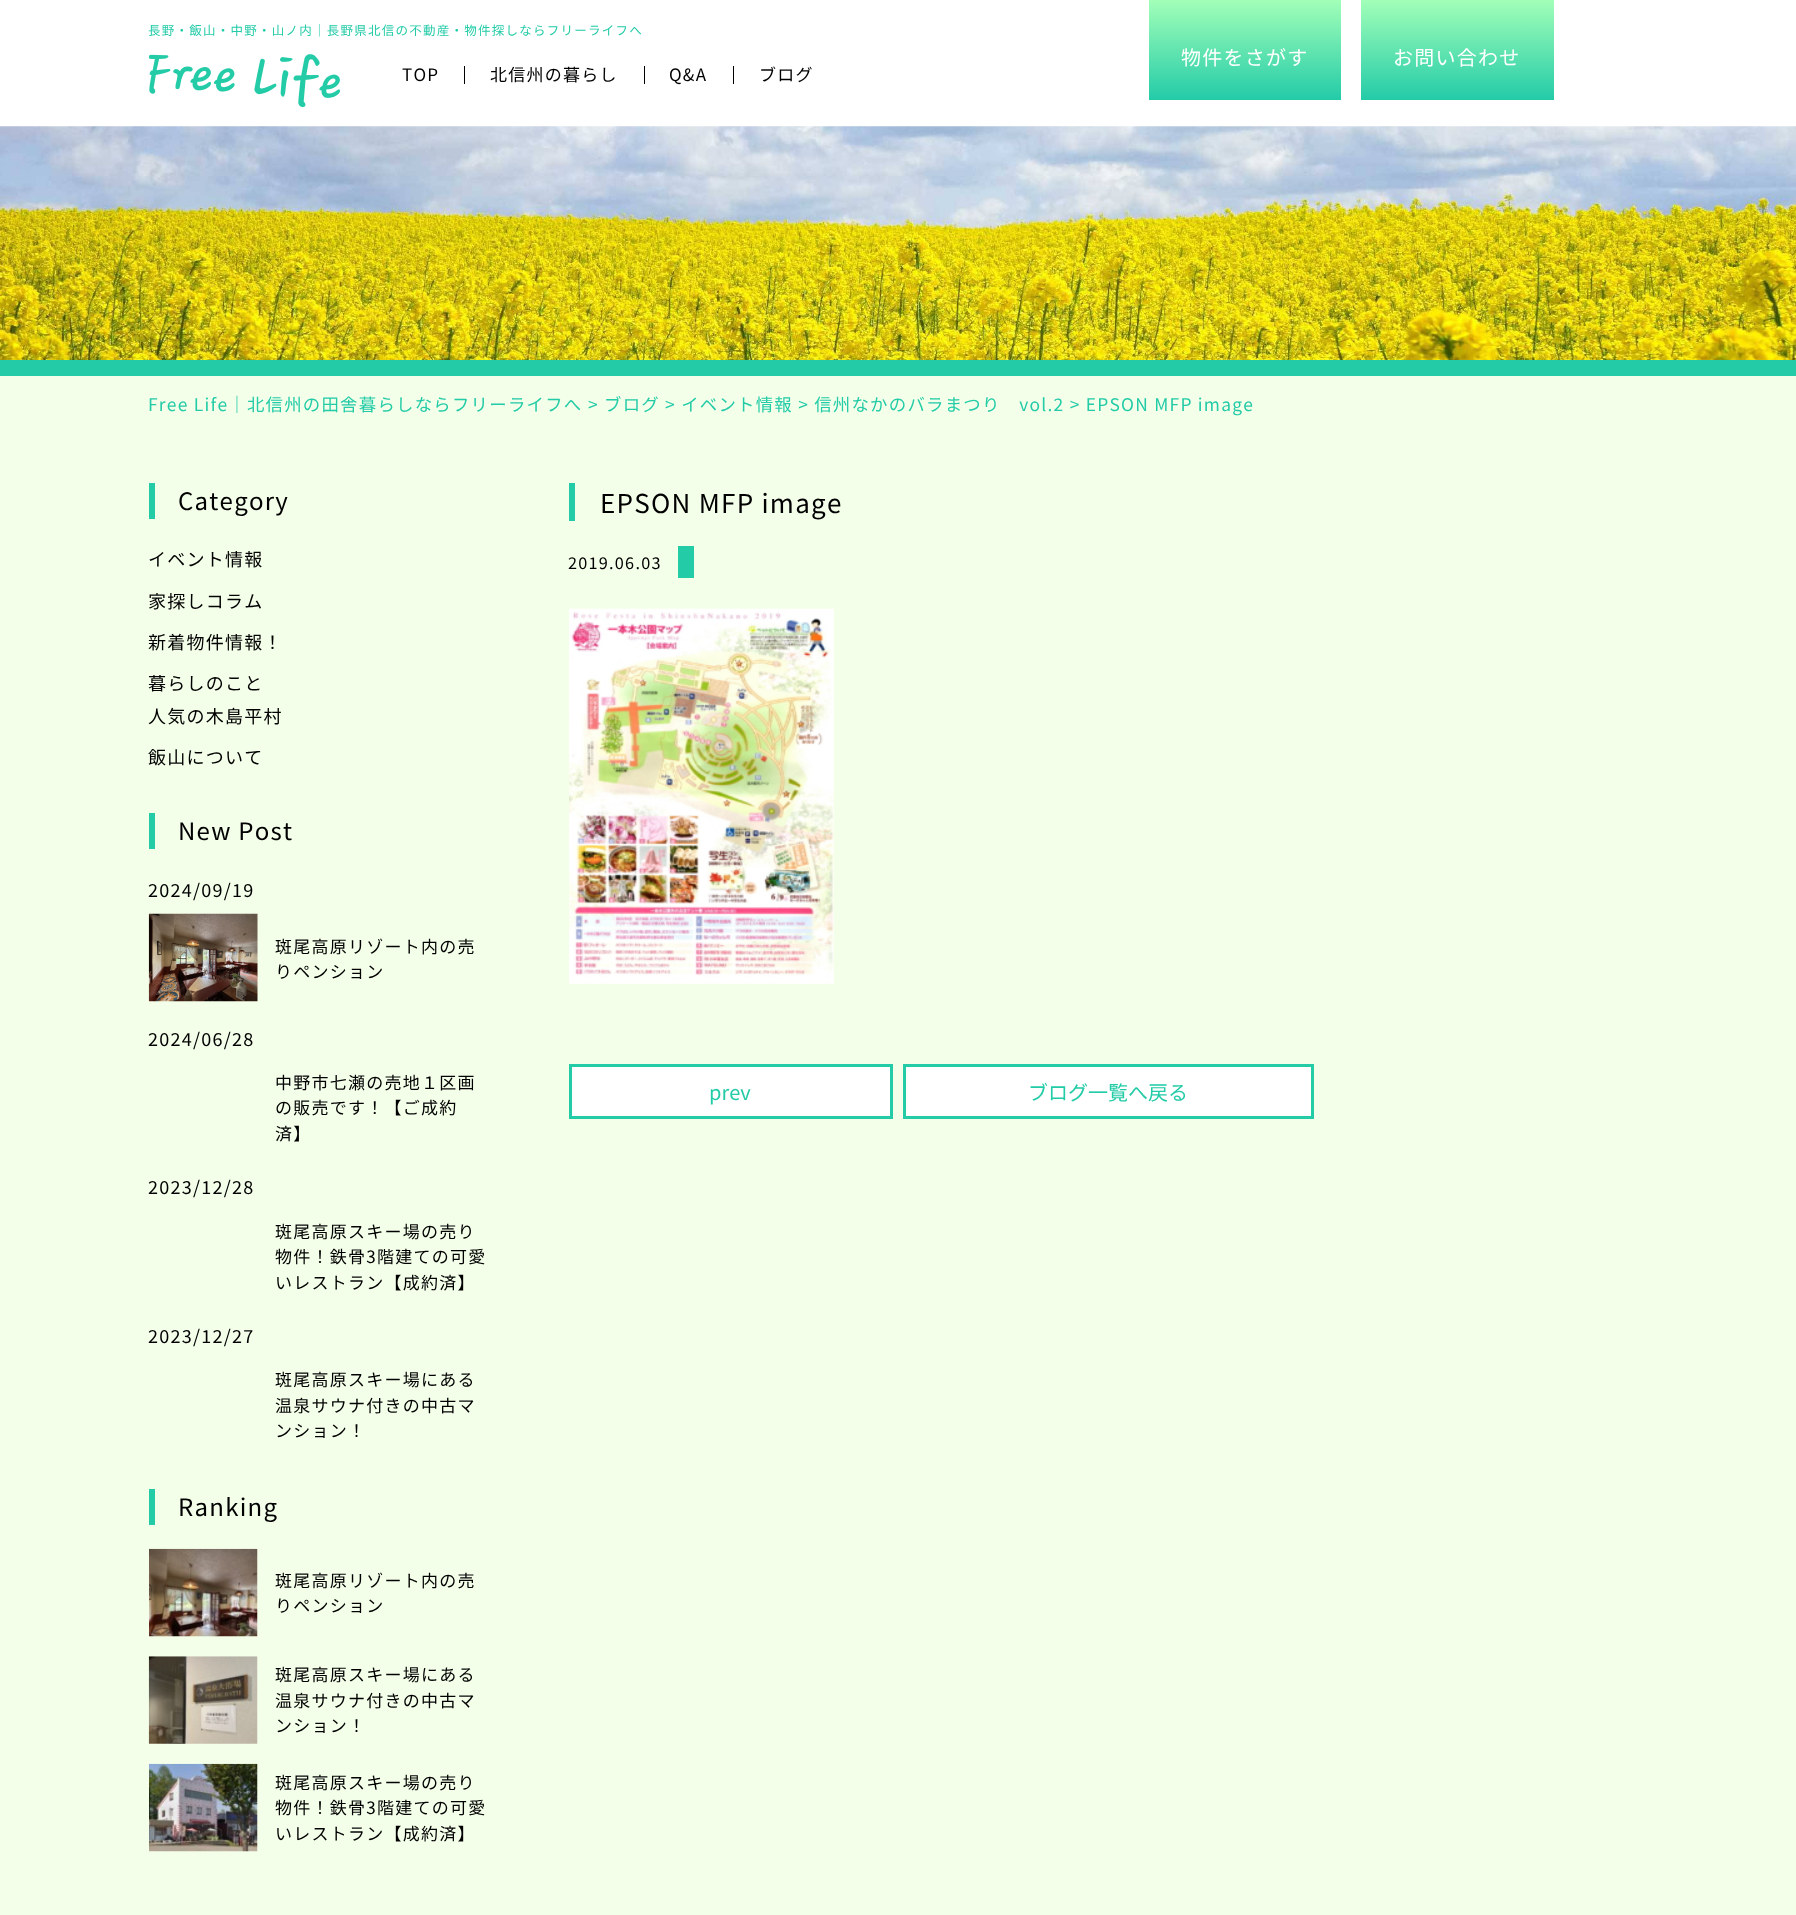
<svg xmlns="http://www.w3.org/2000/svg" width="1796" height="1915">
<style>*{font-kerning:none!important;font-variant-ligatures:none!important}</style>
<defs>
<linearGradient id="g1" gradientUnits="userSpaceOnUse" x1="1245" y1="0" x2="1245" y2="100"><stop offset="0" stop-color="#a2ffb8"/><stop offset="1" stop-color="#23cba8"/></linearGradient>
<linearGradient id="g2" gradientUnits="userSpaceOnUse" x1="1458" y1="0" x2="1458" y2="100"><stop offset="0" stop-color="#a2ffb8"/><stop offset="1" stop-color="#23cba8"/></linearGradient>
</defs>
<rect width="100%" height="100%" fill="#fff"/>
<text x="148" y="35" style="font-family:Noto Sans JP;font-size:12.5px;font-weight:100;letter-spacing:1.25px;fill:#23cba7">長野・飯山・中野・山ノ内｜長野県北信の不動産・物件探しならフリーライフへ</text>
<image x="149" y="54" width="191" height="54" href="media/1.png"/>
<rect x="464" y="66" width="1" height="18" fill="#000"/>
<text x="402" y="81" style="font-family:Noto Sans JP;font-size:17px;font-weight:100;letter-spacing:1.25px;fill:#000">TOP</text>
<rect x="644" y="66" width="1" height="18" fill="#000"/>
<text x="490" y="81" style="font-family:Noto Sans JP;font-size:17px;font-weight:100;letter-spacing:1.25px;fill:#000">北信州の暮らし</text>
<rect x="733" y="66" width="1" height="18" fill="#000"/>
<text x="669" y="81" style="font-family:Noto Sans JP;font-size:17px;font-weight:100;letter-spacing:1.25px;fill:#000">Q&amp;A</text>
<text x="759" y="81" style="font-family:Noto Sans JP;font-size:17px;font-weight:100;letter-spacing:1.25px;fill:#000">ブログ</text>
<rect x="1149" width="192" height="100" fill="url(#g1)"/>
<text x="1181" y="65" style="font-family:Noto Sans JP;font-size:20px;font-weight:100;letter-spacing:1.25px;fill:#fff">物件をさがす</text>
<rect x="1361" width="193" height="100" fill="url(#g2)"/>
<text x="1393" y="65" style="font-family:Noto Sans JP;font-size:20px;font-weight:100;letter-spacing:1.25px;fill:#fff">お問い合わせ</text>
<image x="0" y="126" width="1796" height="234" href="media/2.png"/>
<rect y="360" width="1796" height="16" fill="#23cba7"/>
<rect y="376" width="1796" height="1539" fill="#f4ffe9"/>
<text x="148" y="411" style="font-family:Noto Sans JP;font-size:17.4px;font-weight:100;letter-spacing:1.25px;fill:#23cba7">Free Life｜北信州の田舎暮らしならフリーライフへ</text>
<text x="588" y="411" style="font-family:Noto Sans JP;font-size:17.4px;font-weight:100;letter-spacing:1.25px;fill:#23cba7">&gt; ブログ &gt; イベント情報 &gt; 信州なかのバラまつり　vol.2 &gt; EPSON MFP image</text>
<rect x="149" y="483" width="6" height="36" fill="#23cba7"/>
<text x="178" y="510" style="font-family:Noto Sans JP;font-size:24px;font-weight:100;letter-spacing:1.25px;fill:#000">Category</text>
<text x="148" y="566" style="font-family:Noto Sans JP;font-size:18px;font-weight:100;letter-spacing:1.25px;fill:#000">イベント情報</text>
<text x="148" y="608" style="font-family:Noto Sans JP;font-size:18px;font-weight:100;letter-spacing:1.25px;fill:#000">家探しコラム</text>
<text x="148" y="649" style="font-family:Noto Sans JP;font-size:18px;font-weight:100;letter-spacing:1.25px;fill:#000">新着物件情報！</text>
<text x="148" y="690" style="font-family:Noto Sans JP;font-size:18px;font-weight:100;letter-spacing:1.25px;fill:#000">暮らしのこと</text>
<text x="148" y="723" style="font-family:Noto Sans JP;font-size:18px;font-weight:100;letter-spacing:1.25px;fill:#000">人気の木島平村</text>
<text x="148" y="764" style="font-family:Noto Sans JP;font-size:18px;font-weight:100;letter-spacing:1.25px;fill:#000">飯山について</text>
<rect x="149" y="813" width="6" height="36" fill="#23cba7"/>
<text x="178" y="840" style="font-family:Noto Sans JP;font-size:24px;font-weight:100;letter-spacing:1.25px;fill:#000">New Post</text>
<text x="148" y="897" style="font-family:Noto Sans JP;font-size:18px;font-weight:100;letter-spacing:1.25px;fill:#000">2024/09/19</text>
<image x="148" y="913" width="110" height="89" href="media/3.png"/>
<text x="275" y="953" style="font-family:Noto Sans JP;font-size:17px;font-weight:100;letter-spacing:1.25px;fill:#000">斑尾高原リゾート内の売</text>
<text x="275" y="978" style="font-family:Noto Sans JP;font-size:17px;font-weight:100;letter-spacing:1.25px;fill:#000">りペンション</text>
<text x="148" y="1046" style="font-family:Noto Sans JP;font-size:18px;font-weight:100;letter-spacing:1.25px;fill:#000">2024/06/28</text>
<text x="275" y="1089" style="font-family:Noto Sans JP;font-size:17px;font-weight:100;letter-spacing:1.25px;fill:#000">中野市七瀬の売地１区画</text>
<text x="275" y="1114" style="font-family:Noto Sans JP;font-size:17px;font-weight:100;letter-spacing:1.25px;fill:#000">の販売です！【ご成約</text>
<text x="275" y="1140" style="font-family:Noto Sans JP;font-size:17px;font-weight:100;letter-spacing:1.25px;fill:#000">済】</text>
<text x="148" y="1194" style="font-family:Noto Sans JP;font-size:18px;font-weight:100;letter-spacing:1.25px;fill:#000">2023/12/28</text>
<text x="275" y="1238" style="font-family:Noto Sans JP;font-size:17px;font-weight:100;letter-spacing:1.25px;fill:#000">斑尾高原スキー場の売り</text>
<text x="275" y="1263" style="font-family:Noto Sans JP;font-size:17px;font-weight:100;letter-spacing:1.25px;fill:#000">物件！鉄骨3階建ての可愛</text>
<text x="275" y="1289" style="font-family:Noto Sans JP;font-size:17px;font-weight:100;letter-spacing:1.25px;fill:#000">いレストラン【成約済】</text>
<text x="148" y="1343" style="font-family:Noto Sans JP;font-size:18px;font-weight:100;letter-spacing:1.25px;fill:#000">2023/12/27</text>
<text x="275" y="1386" style="font-family:Noto Sans JP;font-size:17px;font-weight:100;letter-spacing:1.25px;fill:#000">斑尾高原スキー場にある</text>
<text x="275" y="1412" style="font-family:Noto Sans JP;font-size:17px;font-weight:100;letter-spacing:1.25px;fill:#000">温泉サウナ付きの中古マ</text>
<text x="275" y="1437" style="font-family:Noto Sans JP;font-size:17px;font-weight:100;letter-spacing:1.25px;fill:#000">ンション！</text>
<rect x="149" y="1489" width="6" height="36" fill="#23cba7"/>
<text x="178" y="1516" style="font-family:Noto Sans JP;font-size:24px;font-weight:100;letter-spacing:1.25px;fill:#000">Ranking</text>
<image x="149" y="1548" width="109" height="89" href="media/4.png"/>
<text x="275" y="1587" style="font-family:Noto Sans JP;font-size:17px;font-weight:100;letter-spacing:1.25px;fill:#000">斑尾高原リゾート内の売</text>
<text x="275" y="1612" style="font-family:Noto Sans JP;font-size:17px;font-weight:100;letter-spacing:1.25px;fill:#000">りペンション</text>
<image x="148" y="1656" width="110" height="88" href="media/5.png"/>
<text x="275" y="1681" style="font-family:Noto Sans JP;font-size:17px;font-weight:100;letter-spacing:1.25px;fill:#000">斑尾高原スキー場にある</text>
<text x="275" y="1707" style="font-family:Noto Sans JP;font-size:17px;font-weight:100;letter-spacing:1.25px;fill:#000">温泉サウナ付きの中古マ</text>
<text x="275" y="1732" style="font-family:Noto Sans JP;font-size:17px;font-weight:100;letter-spacing:1.25px;fill:#000">ンション！</text>
<image x="149" y="1763" width="109" height="89" href="media/6.png"/>
<text x="275" y="1789" style="font-family:Noto Sans JP;font-size:17px;font-weight:100;letter-spacing:1.25px;fill:#000">斑尾高原スキー場の売り</text>
<text x="275" y="1814" style="font-family:Noto Sans JP;font-size:17px;font-weight:100;letter-spacing:1.25px;fill:#000">物件！鉄骨3階建ての可愛</text>
<text x="275" y="1840" style="font-family:Noto Sans JP;font-size:17px;font-weight:100;letter-spacing:1.25px;fill:#000">いレストラン【成約済】</text>
<rect x="569" y="483" width="6" height="38" fill="#23cba7"/>
<text x="600" y="513" style="font-family:Noto Sans JP;font-size:26px;font-weight:100;letter-spacing:1.25px;fill:#000">EPSON MFP image</text>
<text x="568" y="569" style="font-family:Noto Sans JP;font-size:16.25px;font-weight:100;letter-spacing:1.25px;fill:#000">2019.06.03</text>
<rect x="678" y="546" width="16" height="32" fill="#23cba7"/>
<image x="569" y="608" width="265" height="376" href="media/7.png"/>
<rect x="570.5" y="1065.5" width="321" height="52" fill="#fff" stroke="#23cba7" stroke-width="3"/>
<text x="709" y="1100" style="font-family:Noto Sans JP;font-size:20px;font-weight:100;fill:#23cba7">prev</text>
<rect x="904.5" y="1065.5" width="408" height="52" fill="#fff" stroke="#23cba7" stroke-width="3"/>
<text x="1028" y="1100" style="font-family:Noto Sans JP;font-size:20px;font-weight:100;fill:#23cba7">ブログ一覧へ戻る</text>
</svg>
